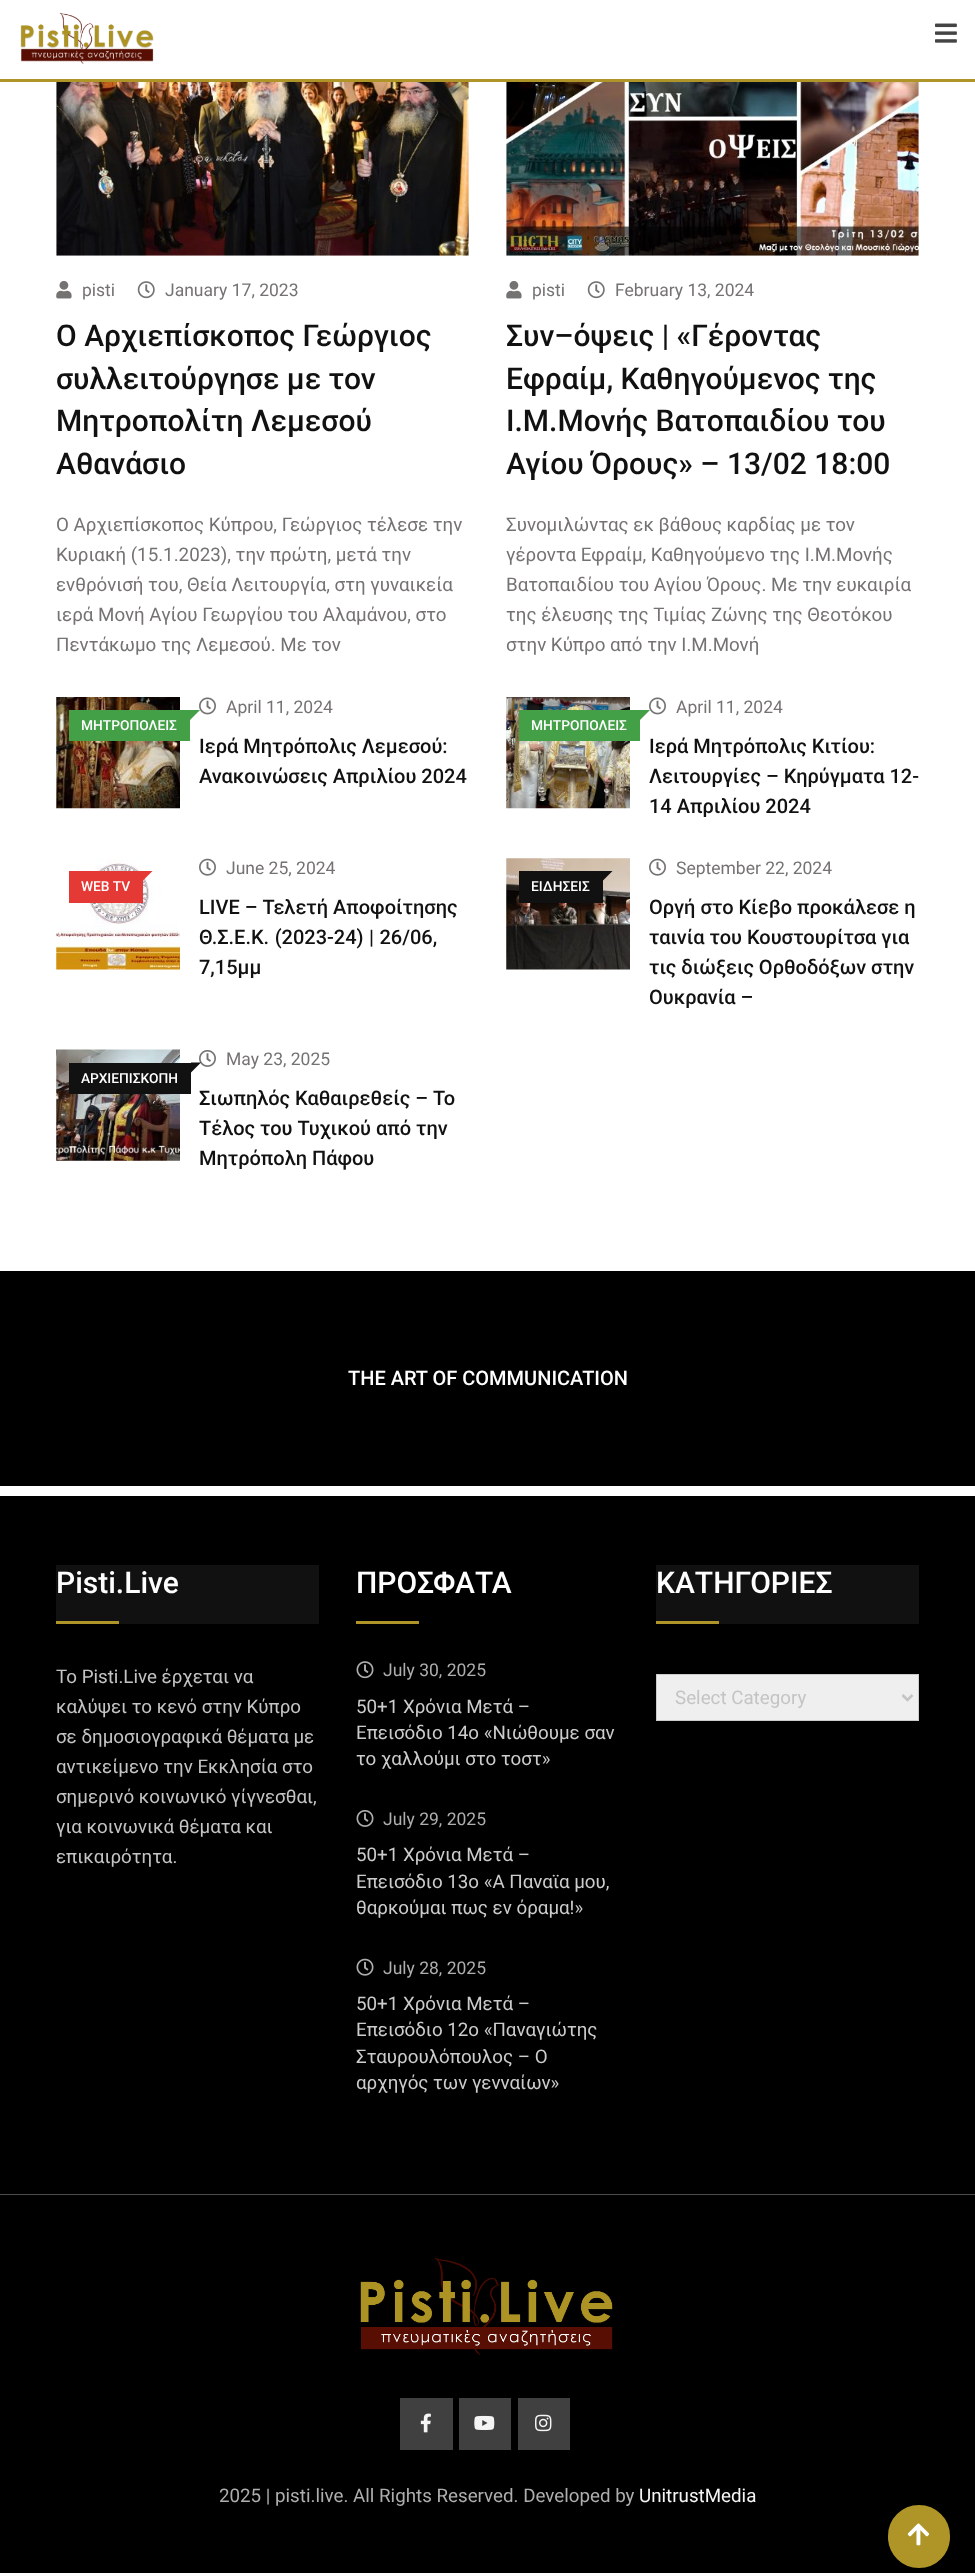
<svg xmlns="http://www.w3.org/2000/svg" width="975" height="2573">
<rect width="100%" height="100%" fill="#fff"/>
<rect y="79" width="975" height="3" fill="#af9527"/>
<image x="20" y="12" width="134" height="52" href="media/1.png"/>
<image x="935" y="23" width="22" height="20" href="media/2.png"/>
<image x="56" y="82" width="413" height="174" href="media/3.png"/>
<image x="56" y="281" width="16" height="18" href="media/4.png"/>
<text x="82" y="296" style="font-family:Roboto;font-size:17.5px;fill:#757272">pisti</text>
<image x="137" y="281" width="18" height="18" href="media/5.png"/>
<text x="165" y="296" style="font-family:Roboto;font-size:17.5px;fill:#757272">January 17, 2023</text>
<text x="56" y="346" style="font-family:Roboto;font-size:30px;font-weight:500;fill:#111">Ο Αρχιεπίσκοπος Γεώργιος</text>
<text x="56" y="389" style="font-family:Roboto;font-size:30px;font-weight:500;fill:#111">συλλειτούργησε με τον</text>
<text x="56" y="431" style="font-family:Roboto;font-size:30px;font-weight:500;fill:#111">Μητροπολίτη Λεμεσού</text>
<text x="56" y="474" style="font-family:Roboto;font-size:30px;font-weight:500;fill:#111">Αθανάσιο</text>
<text x="56" y="531" style="font-family:Roboto;font-size:18.75px;fill:#757272">Ο Αρχιεπίσκοπος Κύπρου, Γεώργιος τέλεσε την</text>
<text x="56" y="561" style="font-family:Roboto;font-size:18.75px;fill:#757272">Κυριακή (15.1.2023), την πρώτη, μετά την</text>
<text x="56" y="591" style="font-family:Roboto;font-size:18.75px;fill:#757272">ενθρόνισή του, Θεία Λειτουργία, στη γυναικεία</text>
<text x="56" y="621" style="font-family:Roboto;font-size:18.75px;fill:#757272">ιερά Μονή Αγίου Γεωργίου του Αλαμάνου, στο</text>
<text x="56" y="651" style="font-family:Roboto;font-size:18.75px;fill:#757272">Πεντάκωμο της Λεμεσού. Με τον</text>
<image x="506" y="82" width="413" height="174" href="media/6.png"/>
<image x="506" y="281" width="16" height="18" href="media/4.png"/>
<text x="532" y="296" style="font-family:Roboto;font-size:17.5px;fill:#757272">pisti</text>
<image x="587" y="281" width="18" height="18" href="media/5.png"/>
<text x="615" y="296" style="font-family:Roboto;font-size:17.5px;fill:#757272">February 13, 2024</text>
<text x="506" y="346" style="font-family:Roboto;font-size:30px;font-weight:500;fill:#111">Συν–όψεις | «Γέροντας</text>
<text x="506" y="389" style="font-family:Roboto;font-size:30px;font-weight:500;fill:#111">Εφραίμ, Καθηγούμενος της</text>
<text x="506" y="431" style="font-family:Roboto;font-size:30px;font-weight:500;fill:#111">Ι.Μ.Μονής Βατοπαιδίου του</text>
<text x="506" y="474" style="font-family:Roboto;font-size:30px;font-weight:500;fill:#111">Αγίου Όρους» – 13/02 18:00</text>
<text x="506" y="531" style="font-family:Roboto;font-size:18.75px;fill:#757272">Συνομιλώντας εκ βάθους καρδίας με τον</text>
<text x="506" y="561" style="font-family:Roboto;font-size:18.75px;fill:#757272">γέροντα Εφραίμ, Καθηγούμενο της Ι.Μ.Μονής</text>
<text x="506" y="591" style="font-family:Roboto;font-size:18.75px;fill:#757272">Βατοπαιδίου του Αγίου Όρους. Με την ευκαιρία</text>
<text x="506" y="621" style="font-family:Roboto;font-size:18.75px;fill:#757272">της έλευσης της Τιμίας Ζώνης της Θεοτόκου</text>
<text x="506" y="651" style="font-family:Roboto;font-size:18.75px;fill:#757272">στην Κύπρο από την Ι.Μ.Μονή</text>
<image x="56" y="697" width="124" height="112" href="media/7.png"/>
<image x="199" y="697" width="17" height="18" href="media/8.png"/>
<text x="226" y="713" style="font-family:Roboto;font-size:17.5px;fill:#757272">April 11, 2024</text>
<text x="199" y="753" style="font-family:Roboto;font-size:20px;font-weight:500;fill:#111">Ιερά Μητρόπολις Λεμεσού:</text>
<text x="199" y="783" style="font-family:Roboto;font-size:20px;font-weight:500;fill:#111">Ανακοινώσεις Απριλίου 2024</text>
<rect x="69" y="710" width="121" height="31" fill="#43a047"/>
<path d="M190 710h10l-10 10z" fill="#43a047"/>
<text x="81" y="730" style="font-family:Roboto;font-size:13.75px;font-weight:500;fill:#fff">ΜΗΤΡΟΠΟΛΕΙΣ</text>
<image x="506" y="697" width="124" height="112" href="media/9.png"/>
<image x="649" y="697" width="17" height="18" href="media/8.png"/>
<text x="676" y="713" style="font-family:Roboto;font-size:17.5px;fill:#757272">April 11, 2024</text>
<text x="649" y="753" style="font-family:Roboto;font-size:20px;font-weight:500;fill:#111">Ιερά Μητρόπολις Κιτίου:</text>
<text x="649" y="783" style="font-family:Roboto;font-size:20px;font-weight:500;fill:#111">Λειτουργίες – Κηρύγματα 12-</text>
<text x="649" y="813" style="font-family:Roboto;font-size:20px;font-weight:500;fill:#111">14 Απριλίου 2024</text>
<rect x="519" y="710" width="121" height="31" fill="#43a047"/>
<path d="M640 710h10l-10 10z" fill="#43a047"/>
<text x="531" y="730" style="font-family:Roboto;font-size:13.75px;font-weight:500;fill:#fff">ΜΗΤΡΟΠΟΛΕΙΣ</text>
<image x="56" y="859" width="124" height="111" href="media/10.png"/>
<image x="199" y="858" width="17" height="18" href="media/11.png"/>
<text x="226" y="874" style="font-family:Roboto;font-size:17.5px;fill:#757272">June 25, 2024</text>
<text x="199" y="914" style="font-family:Roboto;font-size:20px;font-weight:500;fill:#111">LIVE – Τελετή Αποφοίτησης</text>
<text x="199" y="944" word-spacing="0.5" style="font-family:Roboto;font-size:20px;font-weight:500;fill:#111">Θ.Σ.Ε.Κ. (2023-24) | 26/06,</text>
<text x="199" y="974" style="font-family:Roboto;font-size:20px;font-weight:500;fill:#111">7,15μμ</text>
<rect x="69" y="871" width="74" height="32" fill="#e53935"/>
<path d="M142.5 871h10l-10 10z" fill="#e53935"/>
<text x="81" y="891" style="font-family:Roboto;font-size:13.75px;font-weight:500;fill:#fff">WEB TV</text>
<image x="506" y="858" width="124" height="112" href="media/12.png"/>
<image x="649" y="858" width="17" height="18" href="media/11.png"/>
<text x="676" y="874" style="font-family:Roboto;font-size:17.5px;fill:#757272">September 22, 2024</text>
<text x="649" y="914" style="font-family:Roboto;font-size:20px;font-weight:500;fill:#111">Οργή στο Κίεβο προκάλεσε η</text>
<text x="649" y="944" style="font-family:Roboto;font-size:20px;font-weight:500;fill:#111">ταινία του Κουστουρίτσα για</text>
<text x="649" y="974" style="font-family:Roboto;font-size:20px;font-weight:500;fill:#111">τις διώξεις Ορθοδόξων στην</text>
<text x="649" y="1004" style="font-family:Roboto;font-size:20px;font-weight:500;fill:#111">Ουκρανία –</text>
<rect x="519" y="871" width="84" height="32" fill="#111"/>
<path d="M602.5 871h10l-10 10z" fill="#111"/>
<text x="531" y="891" style="font-family:Roboto;font-size:13.75px;font-weight:500;fill:#fff">ΕΙΔΗΣΕΙΣ</text>
<image x="56" y="1049" width="124" height="112" href="media/13.png"/>
<image x="199" y="1050" width="17" height="17" href="media/14.png"/>
<text x="226" y="1065" style="font-family:Roboto;font-size:17.5px;fill:#757272">May 23, 2025</text>
<text x="199" y="1105" style="font-family:Roboto;font-size:20px;font-weight:500;fill:#111">Σιωπηλός Καθαιρεθείς – Το</text>
<text x="199" y="1135" style="font-family:Roboto;font-size:20px;font-weight:500;fill:#111">Τέλος του Τυχικού από την</text>
<text x="199" y="1165" style="font-family:Roboto;font-size:20px;font-weight:500;fill:#111">Μητρόπολη Πάφου</text>
<rect x="69" y="1063" width="122" height="31" fill="#111"/>
<path d="M191 1062.5h10l-10 10z" fill="#111"/>
<text x="81" y="1083" style="font-family:Roboto;font-size:13.75px;font-weight:500;fill:#fff">ΑΡΧΙΕΠΙΣΚΟΠΗ</text>
<rect y="1271" width="975" height="215" fill="#000"/>
<text x="348" y="1385" style="font-family:Roboto;font-size:20px;font-weight:500;fill:#fff">THE ART OF COMMUNICATION</text>
<rect y="1496" width="975" height="698" fill="#000"/>
<rect x="56" y="1565" width="263" height="59" fill="#111"/>
<text x="56" y="1593" style="font-family:Roboto;font-size:30px;font-weight:500;fill:#fff">Pisti.Live</text>
<rect x="56" y="1621" width="63" height="3" fill="#af9527"/>
<text x="56" y="1683" style="font-family:Roboto;font-size:18.75px;fill:#c4c4c4">Το Pisti.Live έρχεται να</text>
<text x="56" y="1713" style="font-family:Roboto;font-size:18.75px;fill:#c4c4c4">καλύψει το κενό στην Κύπρο</text>
<text x="56" y="1743" style="font-family:Roboto;font-size:18.75px;fill:#c4c4c4">σε δημοσιογραφικά θέματα με</text>
<text x="56" y="1773" style="font-family:Roboto;font-size:18.75px;fill:#c4c4c4">αντικείμενο την Εκκλησία στο</text>
<text x="56" y="1803" style="font-family:Roboto;font-size:18.75px;fill:#c4c4c4">σημερινό κοινωνικό γίγνεσθαι,</text>
<text x="56" y="1833" style="font-family:Roboto;font-size:18.75px;fill:#c4c4c4">για κοινωνικά θέματα και</text>
<text x="56" y="1863" style="font-family:Roboto;font-size:18.75px;fill:#c4c4c4">επικαιρότητα.</text>
<text x="356" y="1593" style="font-family:Roboto;font-size:30px;font-weight:500;fill:#fff">ΠΡΟΣΦΑΤΑ</text>
<rect x="356" y="1621" width="63" height="3" fill="#af9527"/>
<image x="356" y="1661" width="18" height="18" href="media/15.png"/>
<text x="383" y="1676" style="font-family:Roboto;font-size:17.5px;fill:#aeaeae">July 30, 2025</text>
<text x="356" y="1713" style="font-family:Roboto;font-size:18.75px;fill:#ccc">50+1 Χρόνια Μετά –</text>
<text x="356" y="1739" style="font-family:Roboto;font-size:18.75px;fill:#ccc">Επεισόδιο 14ο «Νιώθουμε σαν</text>
<text x="356" y="1765" style="font-family:Roboto;font-size:18.75px;fill:#ccc">το χαλλούμι στο τοστ»</text>
<image x="356" y="1810" width="18" height="17" href="media/16.png"/>
<text x="383" y="1825" style="font-family:Roboto;font-size:17.5px;fill:#aeaeae">July 29, 2025</text>
<text x="356" y="1861" style="font-family:Roboto;font-size:18.75px;fill:#ccc">50+1 Χρόνια Μετά –</text>
<text x="356" y="1888" style="font-family:Roboto;font-size:18.75px;fill:#ccc">Επεισόδιο 13ο «Α Παναϊα μου,</text>
<text x="356" y="1914" style="font-family:Roboto;font-size:18.75px;fill:#ccc">θαρκούμαι πως εν όραμα!»</text>
<image x="356" y="1958" width="18" height="18" href="media/17.png"/>
<text x="383" y="1974" style="font-family:Roboto;font-size:17.5px;fill:#aeaeae">July 28, 2025</text>
<text x="356" y="2010" style="font-family:Roboto;font-size:18.75px;fill:#ccc">50+1 Χρόνια Μετά –</text>
<text x="356" y="2036" style="font-family:Roboto;font-size:18.75px;fill:#ccc">Επεισόδιο 12ο «Παναγιώτης</text>
<text x="356" y="2063" style="font-family:Roboto;font-size:18.75px;fill:#ccc">Σταυρουλόπουλος – Ο</text>
<text x="356" y="2089" style="font-family:Roboto;font-size:18.75px;fill:#ccc">αρχηγός των γενναίων»</text>
<rect x="656" y="1565" width="263" height="59" fill="#111"/>
<text x="656" y="1593" style="font-family:Roboto;font-size:30px;font-weight:500;fill:#fff">ΚΑΤΗΓΟΡΙΕΣ</text>
<rect x="656" y="1621" width="63" height="3" fill="#af9527"/>
<rect x="656.5" y="1674.5" width="262" height="46" fill="#efefef" stroke="#ccc"/>
<path d="M902.5 1695l5 5l5-5" fill="none" stroke="#c4c4c4" stroke-width="2.5"/>
<text x="675" y="1704" style="font-family:Roboto;font-size:18.75px;fill:#c4c4c4">Select Category</text>
<rect y="2195" width="975" height="378" fill="#000"/>
<rect y="2194" width="975" height="1" fill="#4d4d4d"/>
<image x="360" y="2257" width="253" height="98" href="media/18.png"/>
<rect x="400" y="2398" width="53" height="52" fill="#404040"/>
<image x="420" y="2413" width="11" height="20" href="media/19.png"/>
<rect x="459" y="2398" width="52" height="52" fill="#404040"/>
<image x="474" y="2415" width="21" height="15" href="media/20.png"/>
<rect x="518" y="2398" width="52" height="52" fill="#404040"/>
<image x="535" y="2414" width="17" height="18" href="media/21.png"/>
<text x="219" y="2502" style="font-family:Roboto;font-size:18.75px;fill:#aeaeae">2025 | pisti.live. All Rights Reserved. Developed by</text>
<text x="639" y="2502" style="font-family:Roboto;font-size:18.75px;fill:#f5f5f5">UnitrustMedia</text>
<rect x="889.5" y="2506.5" width="59" height="60" rx="29.5" fill="#af9527" stroke="#af9527" stroke-width="3"/>
<image x="907" y="2523" width="23" height="23" href="media/22.png"/>
</svg>
